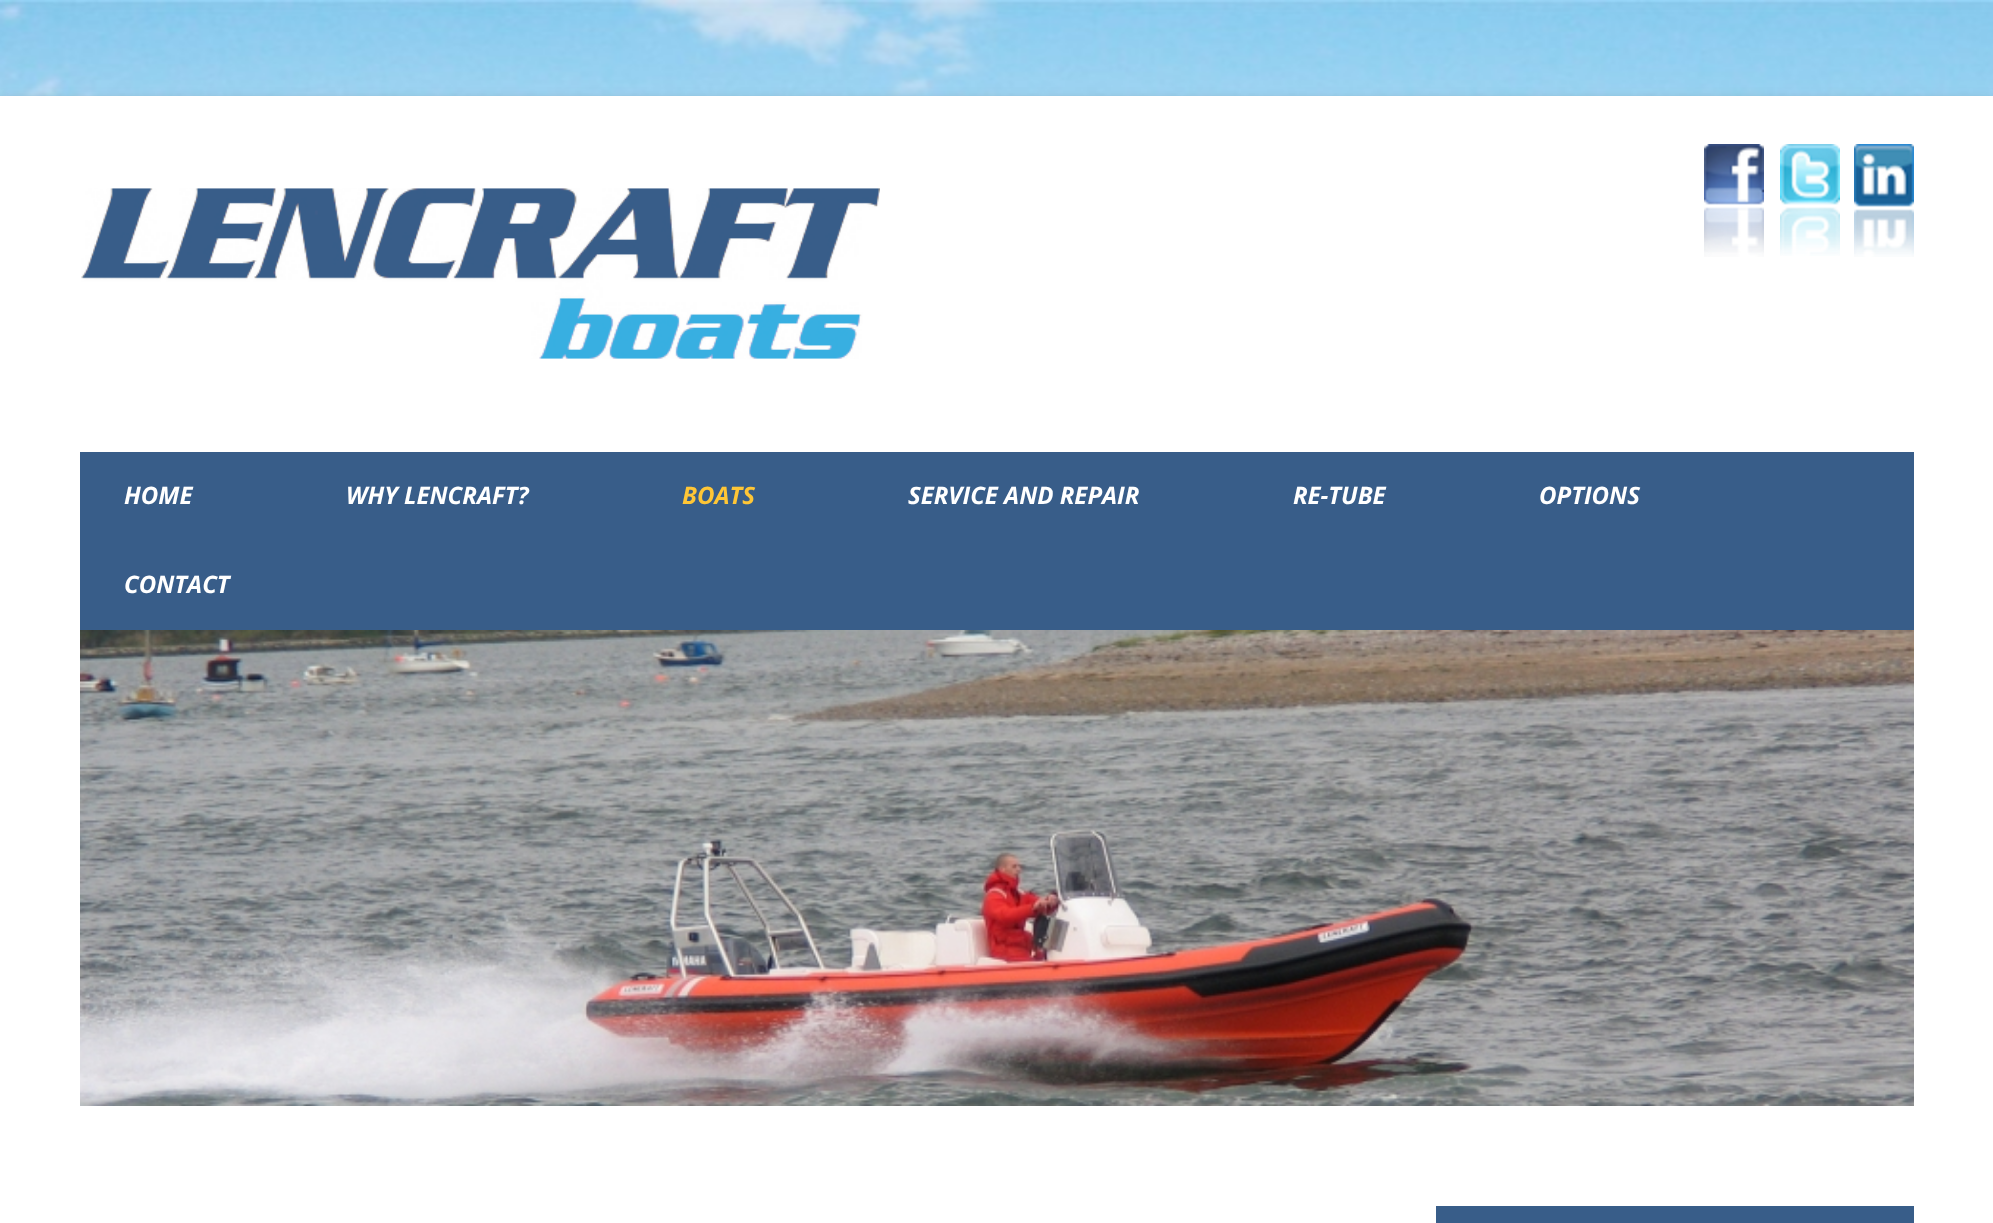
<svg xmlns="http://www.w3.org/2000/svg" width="1993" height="1223">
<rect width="100%" height="100%" fill="#fff"/>
<image x="0" y="0" width="1993" height="96" href="media/1.png"/>
<rect y="100" width="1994" height="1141" fill="#6464644d" filter="blur(6px)"/>
<rect y="96" width="1993" height="1127" fill="#fff"/>
<image x="81" y="188" width="799" height="171" href="media/2.png"/>
<image x="1704" y="144" width="60" height="113" href="media/3.png"/>
<image x="1780" y="144" width="60" height="112" href="media/4.png"/>
<image x="1854" y="144" width="60" height="113" href="media/5.png"/>
<rect x="80" y="452" width="1834" height="178" fill="#385d89"/>
<text x="124" y="504" style="font-family:Open Sans;font-size:24px;font-weight:bold;font-style:italic;fill:#fff">HOME</text>
<text x="346" y="504" style="font-family:Open Sans;font-size:24px;font-weight:bold;font-style:italic;fill:#fff">WHY LENCRAFT?</text>
<text x="682" y="504" style="font-family:Open Sans;font-size:24px;font-weight:bold;font-style:italic;fill:#ffc636">BOATS</text>
<text x="908" y="504" style="font-family:Open Sans;font-size:24px;font-weight:bold;font-style:italic;fill:#fff">SERVICE AND REPAIR</text>
<text x="1293" y="504" style="font-family:Open Sans;font-size:24px;font-weight:bold;font-style:italic;fill:#fff">RE-TUBE</text>
<text x="1539" y="504" style="font-family:Open Sans;font-size:24px;font-weight:bold;font-style:italic;fill:#fff">OPTIONS</text>
<text x="124" y="593" style="font-family:Open Sans;font-size:24px;font-weight:bold;font-style:italic;fill:#fff">CONTACT</text>
<image x="80" y="630" width="1834" height="476" href="media/6.png"/>
<rect x="1436" y="1206" width="478" height="17" fill="#385d89"/>
</svg>
